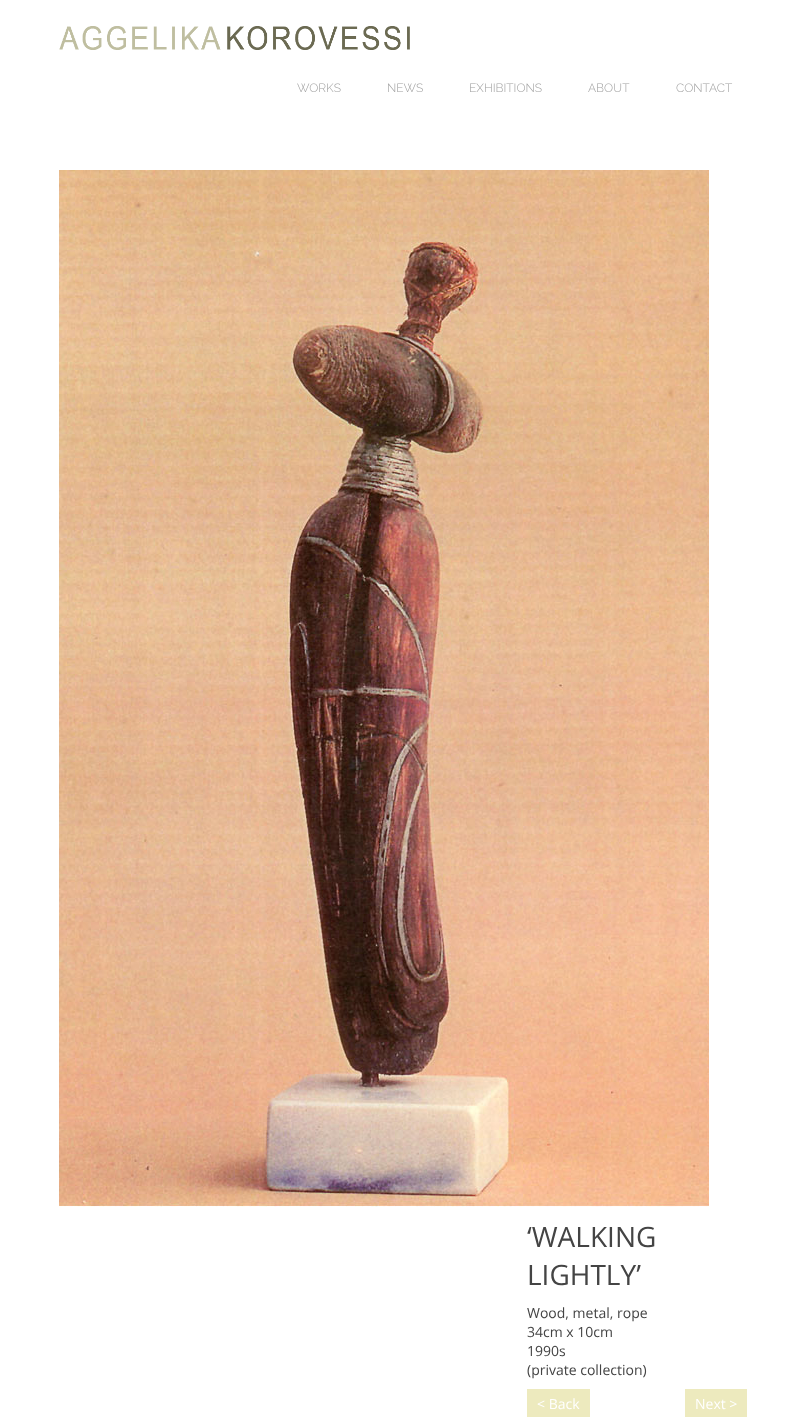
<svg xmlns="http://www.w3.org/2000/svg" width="806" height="1417">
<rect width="100%" height="100%" fill="#fff"/>
<image x="59" y="26" width="351" height="24" href="media/1.png"/>
<text x="297" y="92" style="font-family:Raleway;font-size:12px;font-weight:300;fill:#9f9f9f">WORKS</text>
<text x="387" y="92" style="font-family:Raleway;font-size:12px;font-weight:300;fill:#9f9f9f">NEWS</text>
<text x="469" y="92" style="font-family:Raleway;font-size:12px;font-weight:300;fill:#9f9f9f">EXHIBITIONS</text>
<text x="588" y="92" style="font-family:Raleway;font-size:12px;font-weight:300;fill:#9f9f9f">ABOUT</text>
<text x="676" y="92" style="font-family:Raleway;font-size:12px;font-weight:300;fill:#9f9f9f">CONTACT</text>
<image x="59" y="170" width="650" height="1037" href="media/2.png"/>
<text x="527" y="1247" style="font-family:Open Sans;font-size:28px;fill:#444">‘WALKING</text>
<text x="527" y="1285" style="font-family:Open Sans;font-size:28px;fill:#444">LIGHTLY’</text>
<text x="527" y="1318" style="font-family:Open Sans;font-size:14px;fill:#444">Wood, metal, rope</text>
<text x="527" y="1337" style="font-family:Open Sans;font-size:14px;fill:#444">34cm x 10cm</text>
<text x="527" y="1356" style="font-family:Open Sans;font-size:14px;fill:#444">1990s</text>
<text x="527" y="1375" style="font-family:Open Sans;font-size:14px;fill:#444">(private collection)</text>
<rect x="527" y="1389" width="63" height="28" fill="#edeabe"/>
<text x="537" y="1409" style="font-family:Open Sans;font-size:14px;fill:#fff">&lt; Back</text>
<rect x="685" y="1389" width="62" height="28" fill="#edeabe"/>
<text x="695" y="1409" style="font-family:Open Sans;font-size:14px;fill:#fff">Next &gt;</text>
</svg>
